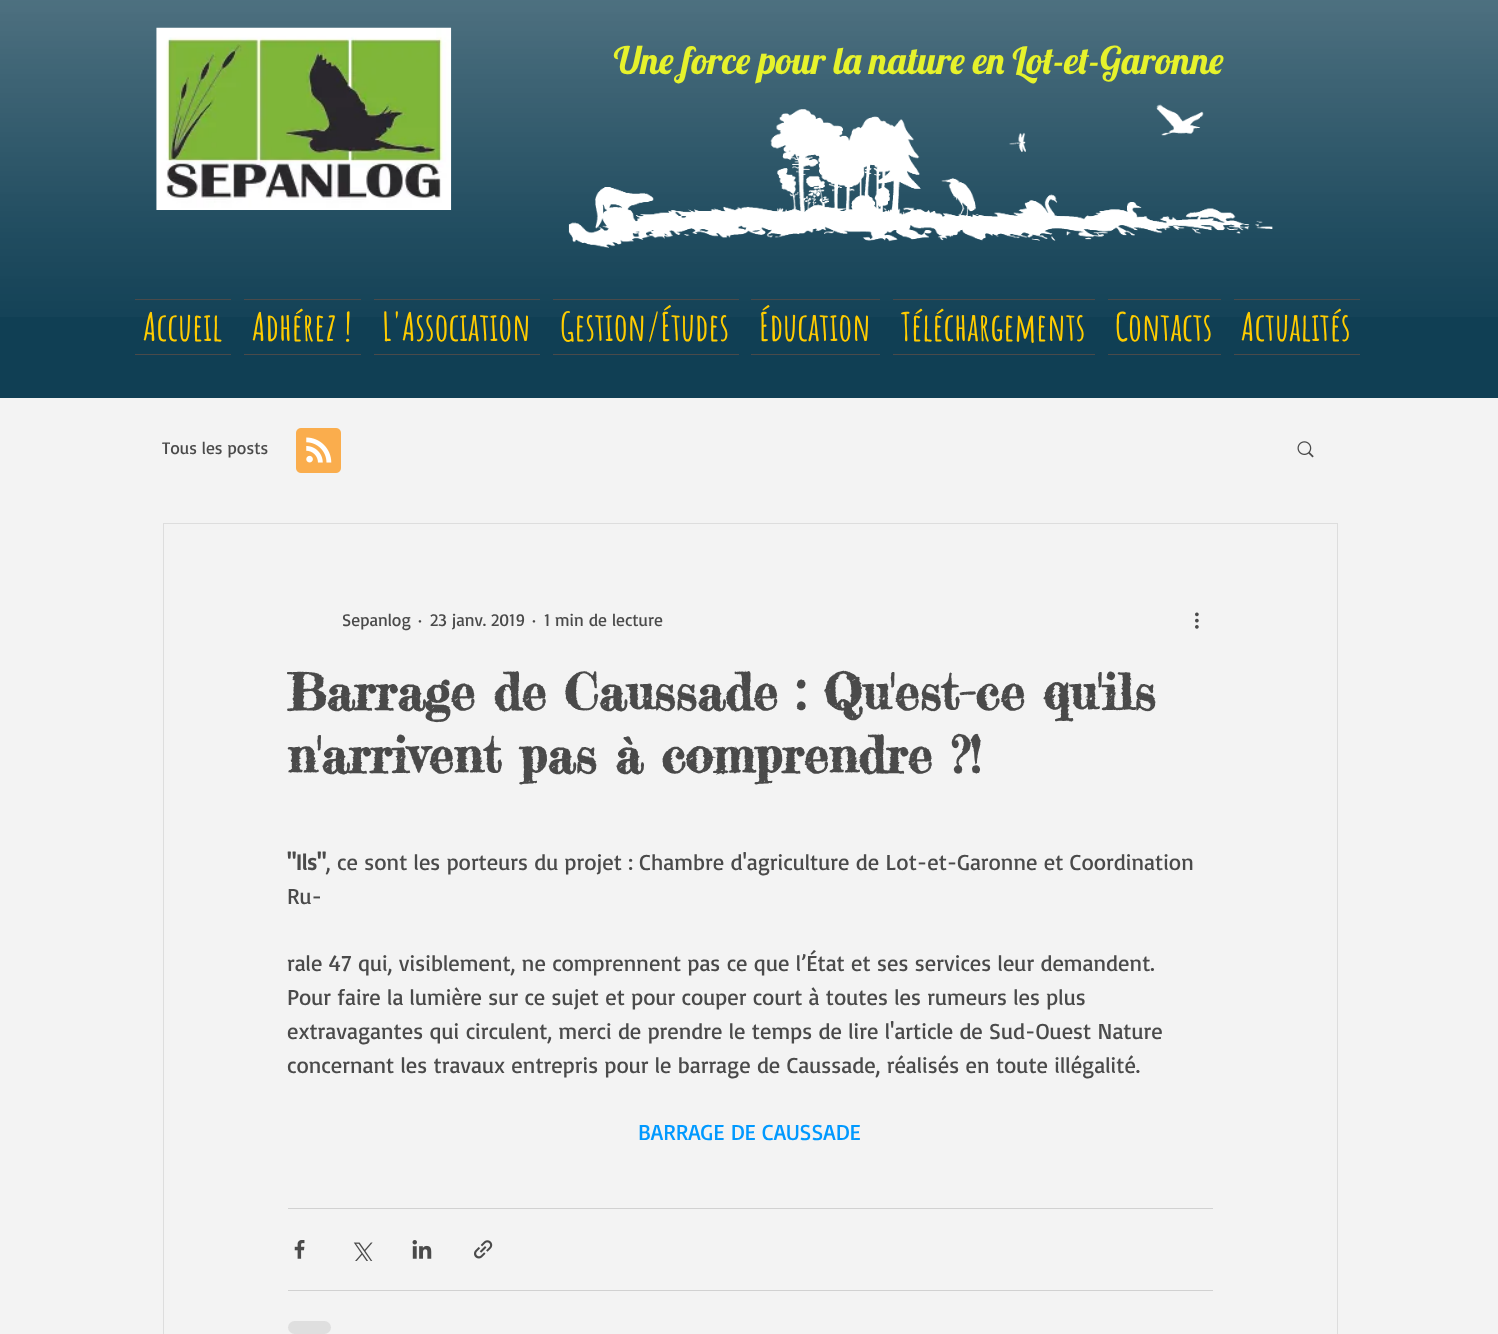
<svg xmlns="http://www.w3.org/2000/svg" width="1498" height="1334">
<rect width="100%" height="100%" fill="#f3f3f3"/>
<rect width="1498" height="398" fill="#103f54"/>
<image x="0" y="0" width="1498" height="317" href="media/1.png"/>
<image x="156" y="27" width="296" height="183" href="media/2.png"/>
<text x="614" y="74" style="font-family:Lobster;font-size:37.5px;fill:#e6f22c">Une force pour la nature en Lot-et-Garonne</text>
<image x="568" y="104" width="705" height="144" href="media/3.png"/>
<rect x="135" y="299" width="96" height="1" fill="#4a4a4a"/>
<rect x="135" y="354" width="96" height="1" fill="#4a4a4a"/>
<text x="143" y="341" style="font-family:Amatic SC;font-size:38.75px;font-weight:bold;fill:#fc0">Accueil</text>
<rect x="244" y="299" width="117" height="1" fill="#4a4a4a"/>
<rect x="244" y="354" width="117" height="1" fill="#4a4a4a"/>
<text x="252" y="341" style="font-family:Amatic SC;font-size:38.75px;font-weight:bold;fill:#fc0">Adhérez !</text>
<rect x="374" y="299" width="166" height="1" fill="#4a4a4a"/>
<rect x="374" y="354" width="166" height="1" fill="#4a4a4a"/>
<text x="382" y="341" style="font-family:Amatic SC;font-size:38.75px;font-weight:bold;fill:#fc0">L'Association</text>
<rect x="553" y="299" width="186" height="1" fill="#4a4a4a"/>
<rect x="553" y="354" width="186" height="1" fill="#4a4a4a"/>
<text x="560" y="341" style="font-family:Amatic SC;font-size:38.75px;font-weight:bold;fill:#fc0">Gestion/Études</text>
<rect x="751" y="299" width="129" height="1" fill="#4a4a4a"/>
<rect x="751" y="354" width="129" height="1" fill="#4a4a4a"/>
<text x="759" y="341" style="font-family:Amatic SC;font-size:38.75px;font-weight:bold;fill:#fc0">Éducation</text>
<rect x="893" y="299" width="202" height="1" fill="#4a4a4a"/>
<rect x="893" y="354" width="202" height="1" fill="#4a4a4a"/>
<text x="901" y="341" style="font-family:Amatic SC;font-size:38.75px;font-weight:bold;fill:#fc0">Téléchargements</text>
<rect x="1108" y="299" width="113" height="1" fill="#4a4a4a"/>
<rect x="1108" y="354" width="113" height="1" fill="#4a4a4a"/>
<text x="1115" y="341" style="font-family:Amatic SC;font-size:38.75px;font-weight:bold;fill:#fc0">Contacts</text>
<rect x="1234" y="299" width="126" height="1" fill="#4a4a4a"/>
<rect x="1234" y="354" width="126" height="1" fill="#4a4a4a"/>
<text x="1241" y="341" style="font-family:Amatic SC;font-size:38.75px;font-weight:bold;fill:#fc0">Actualités</text>
<image x="296" y="428" width="45" height="45" href="media/4.png"/>
<text x="162" y="454" style="font-family:Basic;font-size:17.5px;fill:#4a4a4a">Tous les posts</text>
<image x="1297" y="441" width="17" height="17" href="media/5.png"/>
<rect x="163.5" y="523.5" width="1174" height="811" fill="none" stroke="#ddd"/>
<text x="342" y="626" style="font-family:Basic;font-size:17.5px;fill:#4a4a4a">Sepanlog</text>
<text x="418" y="626" style="font-family:Basic;font-size:17.5px;fill:#4a4a4a">·</text>
<text x="430" y="626" style="font-family:Basic;font-size:17.5px;fill:#4a4a4a">23 janv. 2019</text>
<text x="532" y="626" style="font-family:Basic;font-size:17.5px;fill:#4a4a4a">·</text>
<text x="544" y="626" style="font-family:Basic;font-size:17.5px;fill:#4a4a4a">1 min de lecture</text>
<image x="1195" y="612" width="4" height="17" href="media/6.png"/>
<text x="287" y="710" style="font-family:Fredericka the Great;font-size:50px;font-weight:bold;fill:#4a4a4a">Barrage de Caussade : Qu'est-ce qu'ils</text>
<text x="287" y="773" style="font-family:Fredericka the Great;font-size:50px;font-weight:bold;fill:#4a4a4a">n'arrivent pas à comprendre ?!</text>
<text x="287" y="870" style="font-family:Basic;font-size:22.5px;font-weight:bold;fill:#4a4a4a">"Ils"</text>
<text x="326" y="870" style="font-family:Basic;font-size:22.5px;fill:#4a4a4a">, ce sont les porteurs du projet : Chambre d'agriculture de Lot-et-Garonne et Coordination</text>
<text x="287" y="904" style="font-family:Basic;font-size:22.5px;fill:#4a4a4a">Ru-</text>
<text x="287" y="971" style="font-family:Basic;font-size:22.5px;fill:#4a4a4a">rale 47 qui, visiblement, ne comprennent pas ce que l’État et ses services leur demandent.</text>
<text x="287" y="1005" style="font-family:Basic;font-size:22.5px;fill:#4a4a4a">Pour faire la lumière sur ce sujet et pour couper court à toutes les rumeurs les plus</text>
<text x="287" y="1039" style="font-family:Basic;font-size:22.5px;fill:#4a4a4a">extravagantes qui circulent, merci de prendre le temps de lire l'article de Sud-Ouest Nature</text>
<text x="287" y="1073" style="font-family:Basic;font-size:22.5px;fill:#4a4a4a">concernant les travaux entrepris pour le barrage de Caussade, réalisés en toute illégalité.</text>
<text x="638" y="1140" style="font-family:Basic;font-size:22.5px;fill:#09f">BARRAGE DE CAUSSADE</text>
<rect x="288" y="1208" width="925" height="1" fill="#d1d1d1"/>
<image x="294" y="1240" width="11" height="19" href="media/7.png"/>
<image x="353" y="1242" width="20" height="19" href="media/8.png"/>
<image x="412" y="1240" width="20" height="19" href="media/9.png"/>
<image x="474" y="1240" width="19" height="19" href="media/10.png"/>
<rect x="288" y="1290" width="925" height="1" fill="#d1d1d1"/>
<rect x="288" y="1321" width="43" height="13" rx="6.5" fill="#dfdfdf"/>
</svg>
